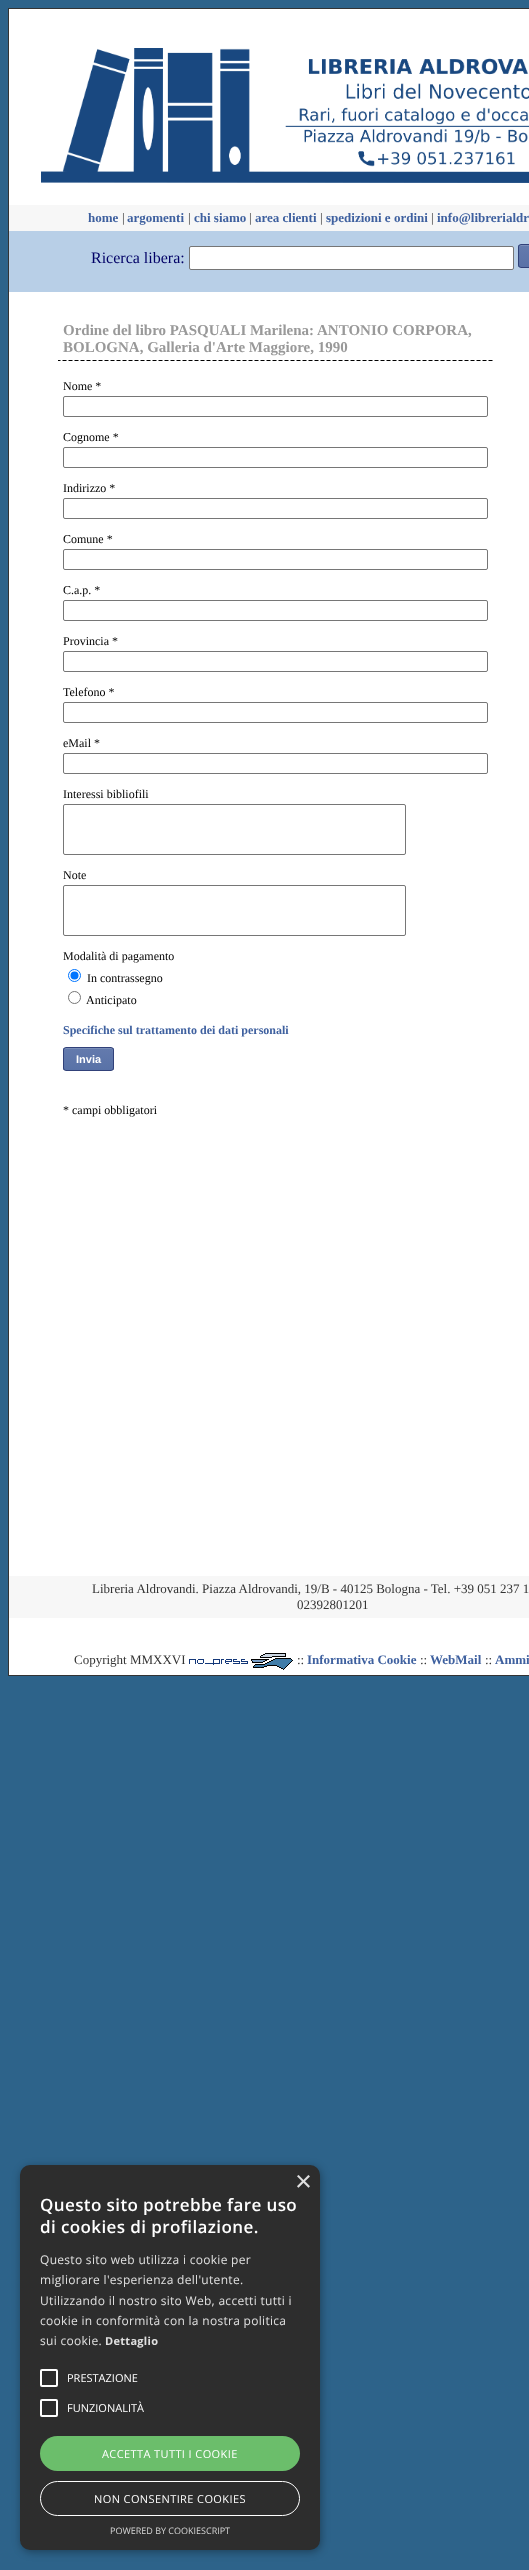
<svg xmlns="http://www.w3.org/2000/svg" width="529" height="2570">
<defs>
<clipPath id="clip1"><rect x="518" y="244" width="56" height="24" rx="3"/></clipPath>
<linearGradient id="g1" gradientUnits="userSpaceOnUse" x1="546" y1="245" x2="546" y2="267"><stop offset="0.05" stop-color="#637aad"/><stop offset="1" stop-color="#5972a7"/></linearGradient>
<clipPath id="clip2"><rect x="63" y="1047" width="51" height="24" rx="3"/></clipPath>
<linearGradient id="g2" gradientUnits="userSpaceOnUse" x1="89" y1="1048" x2="89" y2="1070"><stop offset="0.05" stop-color="#637aad"/><stop offset="1" stop-color="#5972a7"/></linearGradient>
</defs>
<rect width="100%" height="100%" fill="#2d638a"/>
<rect x="8" y="8" width="521" height="1668" fill="#333"/>
<rect x="9" y="9" width="520" height="1666" fill="#fff"/>
<image x="41" y="48" width="488" height="135" href="media/1.png"/>
<rect x="9" y="205" width="520" height="26" fill="#f7f7f7"/>
<text x="88" y="222" style="font-family:Liberation Serif;font-size:13px;font-weight:bold;fill:#3e609f">home</text>
<text x="122" y="222" style="font-family:Liberation Serif;font-size:13px;fill:#333">|</text>
<text x="127" y="222" style="font-family:Liberation Serif;font-size:13px;font-weight:bold;fill:#3e609f">argomenti</text>
<text x="188" y="222" style="font-family:Liberation Serif;font-size:13px;fill:#333">|</text>
<text x="194" y="222" style="font-family:Liberation Serif;font-size:13px;font-weight:bold;fill:#3e609f">chi siamo</text>
<text x="249" y="222" style="font-family:Liberation Serif;font-size:13px;fill:#333">|</text>
<text x="255" y="222" style="font-family:Liberation Serif;font-size:13px;font-weight:bold;fill:#3e609f">area clienti</text>
<text x="320" y="222" style="font-family:Liberation Serif;font-size:13px;fill:#333">|</text>
<text x="326" y="222" style="font-family:Liberation Serif;font-size:13px;font-weight:bold;fill:#3e609f">spedizioni e ordini</text>
<text x="431" y="222" style="font-family:Liberation Serif;font-size:13px;fill:#333">|</text>
<text x="437" y="222" style="font-family:Liberation Serif;font-size:13px;font-weight:bold;fill:#3e609f">info@librerialdr</text>
<rect x="9" y="231" width="520" height="61" fill="#b8cfe7"/>
<text x="91" y="263" style="font-family:Liberation Serif;font-size:16px;fill:#006">Ricerca libera:</text>
<rect x="189.5" y="246.5" width="324" height="23" rx="1.5" fill="#fff" stroke="#767676"/>
<g clip-path="url(#clip1)">
<rect x="518" y="245" width="11" height="22" fill="url(#g1)"/>
</g>
<path d="M521 246h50c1 0 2 1 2 2c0-5-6-3-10-3h-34c-4 0-10-2-10 3c0-1 1-2 2-2z" fill="#7a8eb9"/>
<rect x="518.5" y="244.5" width="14" height="23" rx="2.5" fill="none" stroke="#314179"/>
<image x="58" y="360" width="435" height="1" href="media/2.png"/>
<text x="63" y="335" style="font-family:Liberation Serif;font-size:15px;font-weight:bold;fill:#999">Ordine del libro PASQUALI Marilena: ANTONIO CORPORA,</text>
<text x="63" y="352" style="font-family:Liberation Serif;font-size:15px;font-weight:bold;fill:#999">BOLOGNA, Galleria d'Arte Maggiore, 1990</text>
<text x="63" y="390" style="font-family:Liberation Serif;font-size:12px;fill:#000">Nome *</text>
<rect x="63.5" y="396.5" width="424" height="20" rx="1.5" fill="none" stroke="#767676"/>
<text x="63" y="441" style="font-family:Liberation Serif;font-size:12px;fill:#000">Cognome *</text>
<rect x="63.5" y="447.5" width="424" height="20" rx="1.5" fill="none" stroke="#767676"/>
<text x="63" y="492" style="font-family:Liberation Serif;font-size:12px;fill:#000">Indirizzo *</text>
<rect x="63.5" y="498.5" width="424" height="20" rx="1.5" fill="none" stroke="#767676"/>
<text x="63" y="543" style="font-family:Liberation Serif;font-size:12px;fill:#000">Comune *</text>
<rect x="63.5" y="549.5" width="424" height="20" rx="1.5" fill="none" stroke="#767676"/>
<text x="63" y="594" style="font-family:Liberation Serif;font-size:12px;fill:#000">C.a.p. *</text>
<rect x="63.5" y="600.5" width="424" height="20" rx="1.5" fill="none" stroke="#767676"/>
<text x="63" y="645" style="font-family:Liberation Serif;font-size:12px;fill:#000">Provincia *</text>
<rect x="63.5" y="651.5" width="424" height="20" rx="1.5" fill="none" stroke="#767676"/>
<text x="63" y="696" style="font-family:Liberation Serif;font-size:12px;fill:#000">Telefono *</text>
<rect x="63.5" y="702.5" width="424" height="20" rx="1.5" fill="none" stroke="#767676"/>
<text x="63" y="747" style="font-family:Liberation Serif;font-size:12px;fill:#000">eMail *</text>
<rect x="63.5" y="753.5" width="424" height="20" rx="1.5" fill="none" stroke="#767676"/>
<text x="63" y="798" style="font-family:Liberation Serif;font-size:12px;fill:#000">Interessi bibliofili</text>
<rect x="63.5" y="804.5" width="342" height="50" rx="1.5" fill="none" stroke="#767676"/>
<text x="63" y="879" style="font-family:Liberation Serif;font-size:12px;fill:#000">Note</text>
<rect x="63.5" y="885.5" width="342" height="50" rx="1.5" fill="none" stroke="#767676"/>
<text x="63" y="960" style="font-family:Liberation Serif;font-size:12px;fill:#000">Modalità di pagamento</text>
<circle cx="74.5" cy="975.5" r="6" fill="none" stroke="#0075ff"/>
<circle cx="74.5" cy="975.5" r="4" fill="#0075ff"/>
<text x="87" y="982" style="font-family:Liberation Serif;font-size:12px;fill:#000">In contrassegno</text>
<circle cx="74.5" cy="997.5" r="6" fill="none" stroke="#767676"/>
<text x="86" y="1004" style="font-family:Liberation Serif;font-size:12px;fill:#000">Anticipato</text>
<text x="63" y="1034" style="font-family:Liberation Serif;font-size:12px;font-weight:bold;fill:#3e609f">Specifiche sul trattamento dei dati personali</text>
<g clip-path="url(#clip2)">
<rect x="63" y="1048" width="51" height="22" fill="url(#g2)"/>
</g>
<path d="M66 1049h44h2c1 1 1 4 1 5c0-1 1-6-2-6h-37c-5 0-10-2-10 3c0-1 1-2 2-2z" fill="#7a8eb9"/>
<rect x="63.5" y="1047.5" width="50" height="23" rx="2.5" fill="none" stroke="#314179"/>
<text x="76" y="1063" style="font-family:Liberation Sans;font-size:11px;font-weight:bold;fill:#fff">Invia</text>
<text x="63" y="1114" style="font-family:Liberation Serif;font-size:12px;fill:#000">* campi obbligatori</text>
<rect x="9" y="1576" width="520" height="42" fill="#f7f7f7"/>
<text x="92" y="1593" style="font-family:Liberation Serif;font-size:13px;fill:#333">Libreria Aldrovandi. Piazza Aldrovandi, 19/B - 40125 Bologna - Tel. +39 051 237 1</text>
<text x="297" y="1609" style="font-family:Liberation Serif;font-size:13px;fill:#333">02392801201</text>
<text x="74" y="1664" style="font-family:Liberation Serif;font-size:13px;fill:#333">Copyright MMXXVI</text>
<image x="189" y="1653" width="104" height="17" href="media/3.png"/>
<text x="297" y="1664" style="font-family:Liberation Serif;font-size:13px;fill:#333">::</text>
<text x="307" y="1664" style="font-family:Liberation Serif;font-size:13px;font-weight:bold;fill:#3e609f">Informativa Cookie</text>
<text x="420" y="1664" style="font-family:Liberation Serif;font-size:13px;fill:#333">::</text>
<text x="430" y="1664" style="font-family:Liberation Serif;font-size:13px;font-weight:bold;fill:#3e609f">WebMail</text>
<text x="485" y="1664" style="font-family:Liberation Serif;font-size:13px;fill:#333">::</text>
<text x="495" y="1664" style="font-family:Liberation Serif;font-size:13px;font-weight:bold;fill:#3e609f">Ammi</text>
<rect x="21" y="2167" width="300" height="385" rx="10" fill="#00000059" filter="blur(4px)"/>
<rect x="20" y="2165" width="300" height="385" rx="10" fill="#2d2d2d"/>
<text x="295" y="2191" style="font-family:Liberation Sans;font-size:29px;fill:#e0e0e0">×</text>
<text x="40" y="2211" style="font-family:Open Sans;font-size:17px;font-weight:600;letter-spacing:0.4px;fill:#fff">Questo sito potrebbe fare uso</text>
<text x="40" y="2233" style="font-family:Open Sans;font-size:17px;font-weight:600;letter-spacing:0.4px;fill:#fff">di cookies di profilazione.</text>
<text x="40" y="2264" style="font-family:Open Sans;font-size:12px;letter-spacing:0.3px;fill:#e0e0e0">Questo sito web utilizza i cookie per</text>
<text x="40" y="2284" style="font-family:Open Sans;font-size:12px;letter-spacing:0.3px;fill:#e0e0e0">migliorare l'esperienza dell'utente.</text>
<text x="40" y="2305" style="font-family:Open Sans;font-size:12px;letter-spacing:0.3px;fill:#e0e0e0">Utilizzando il nostro sito Web, accetti tutti i</text>
<text x="40" y="2325" style="font-family:Open Sans;font-size:12px;letter-spacing:0.3px;fill:#e0e0e0">cookie in conformità con la nostra politica</text>
<text x="40" y="2345" style="font-family:Open Sans;font-size:12px;letter-spacing:0.3px;fill:#e0e0e0">sui cookie.</text>
<text x="105" y="2345" style="font-family:Open Sans;font-size:11px;font-weight:bold;letter-spacing:0.3px;fill:#e0e0e0">Dettaglio</text>
<rect x="41" y="2370" width="16" height="16" rx="1" fill="none" stroke="#fff" stroke-width="2"/>
<text x="67" y="2382" style="font-family:Open Sans;font-size:11px;fill:#fff">PRESTAZIONE</text>
<rect x="41" y="2400" width="16" height="16" rx="1" fill="none" stroke="#fff" stroke-width="2"/>
<text x="67" y="2412" style="font-family:Open Sans;font-size:11px;fill:#fff">FUNZIONALITÀ</text>
<rect x="40" y="2436" width="260" height="35" rx="17.5" fill="#6bbe6b"/>
<text x="102" y="2458" style="font-family:Open Sans;font-size:11px;letter-spacing:0.4px;fill:#fff">ACCETTA TUTTI I COOKIE</text>
<rect x="40.5" y="2481.5" width="259" height="34" rx="17" fill="none" stroke="#fff"/>
<text x="94" y="2503" style="font-family:Open Sans;font-size:11px;letter-spacing:0.4px;fill:#fff">NON CONSENTIRE COOKIES</text>
<text x="110" y="2534" style="font-family:Open Sans;font-size:9px;fill:#d5d5d5">POWERED BY COOKIESCRIPT</text>
</svg>
